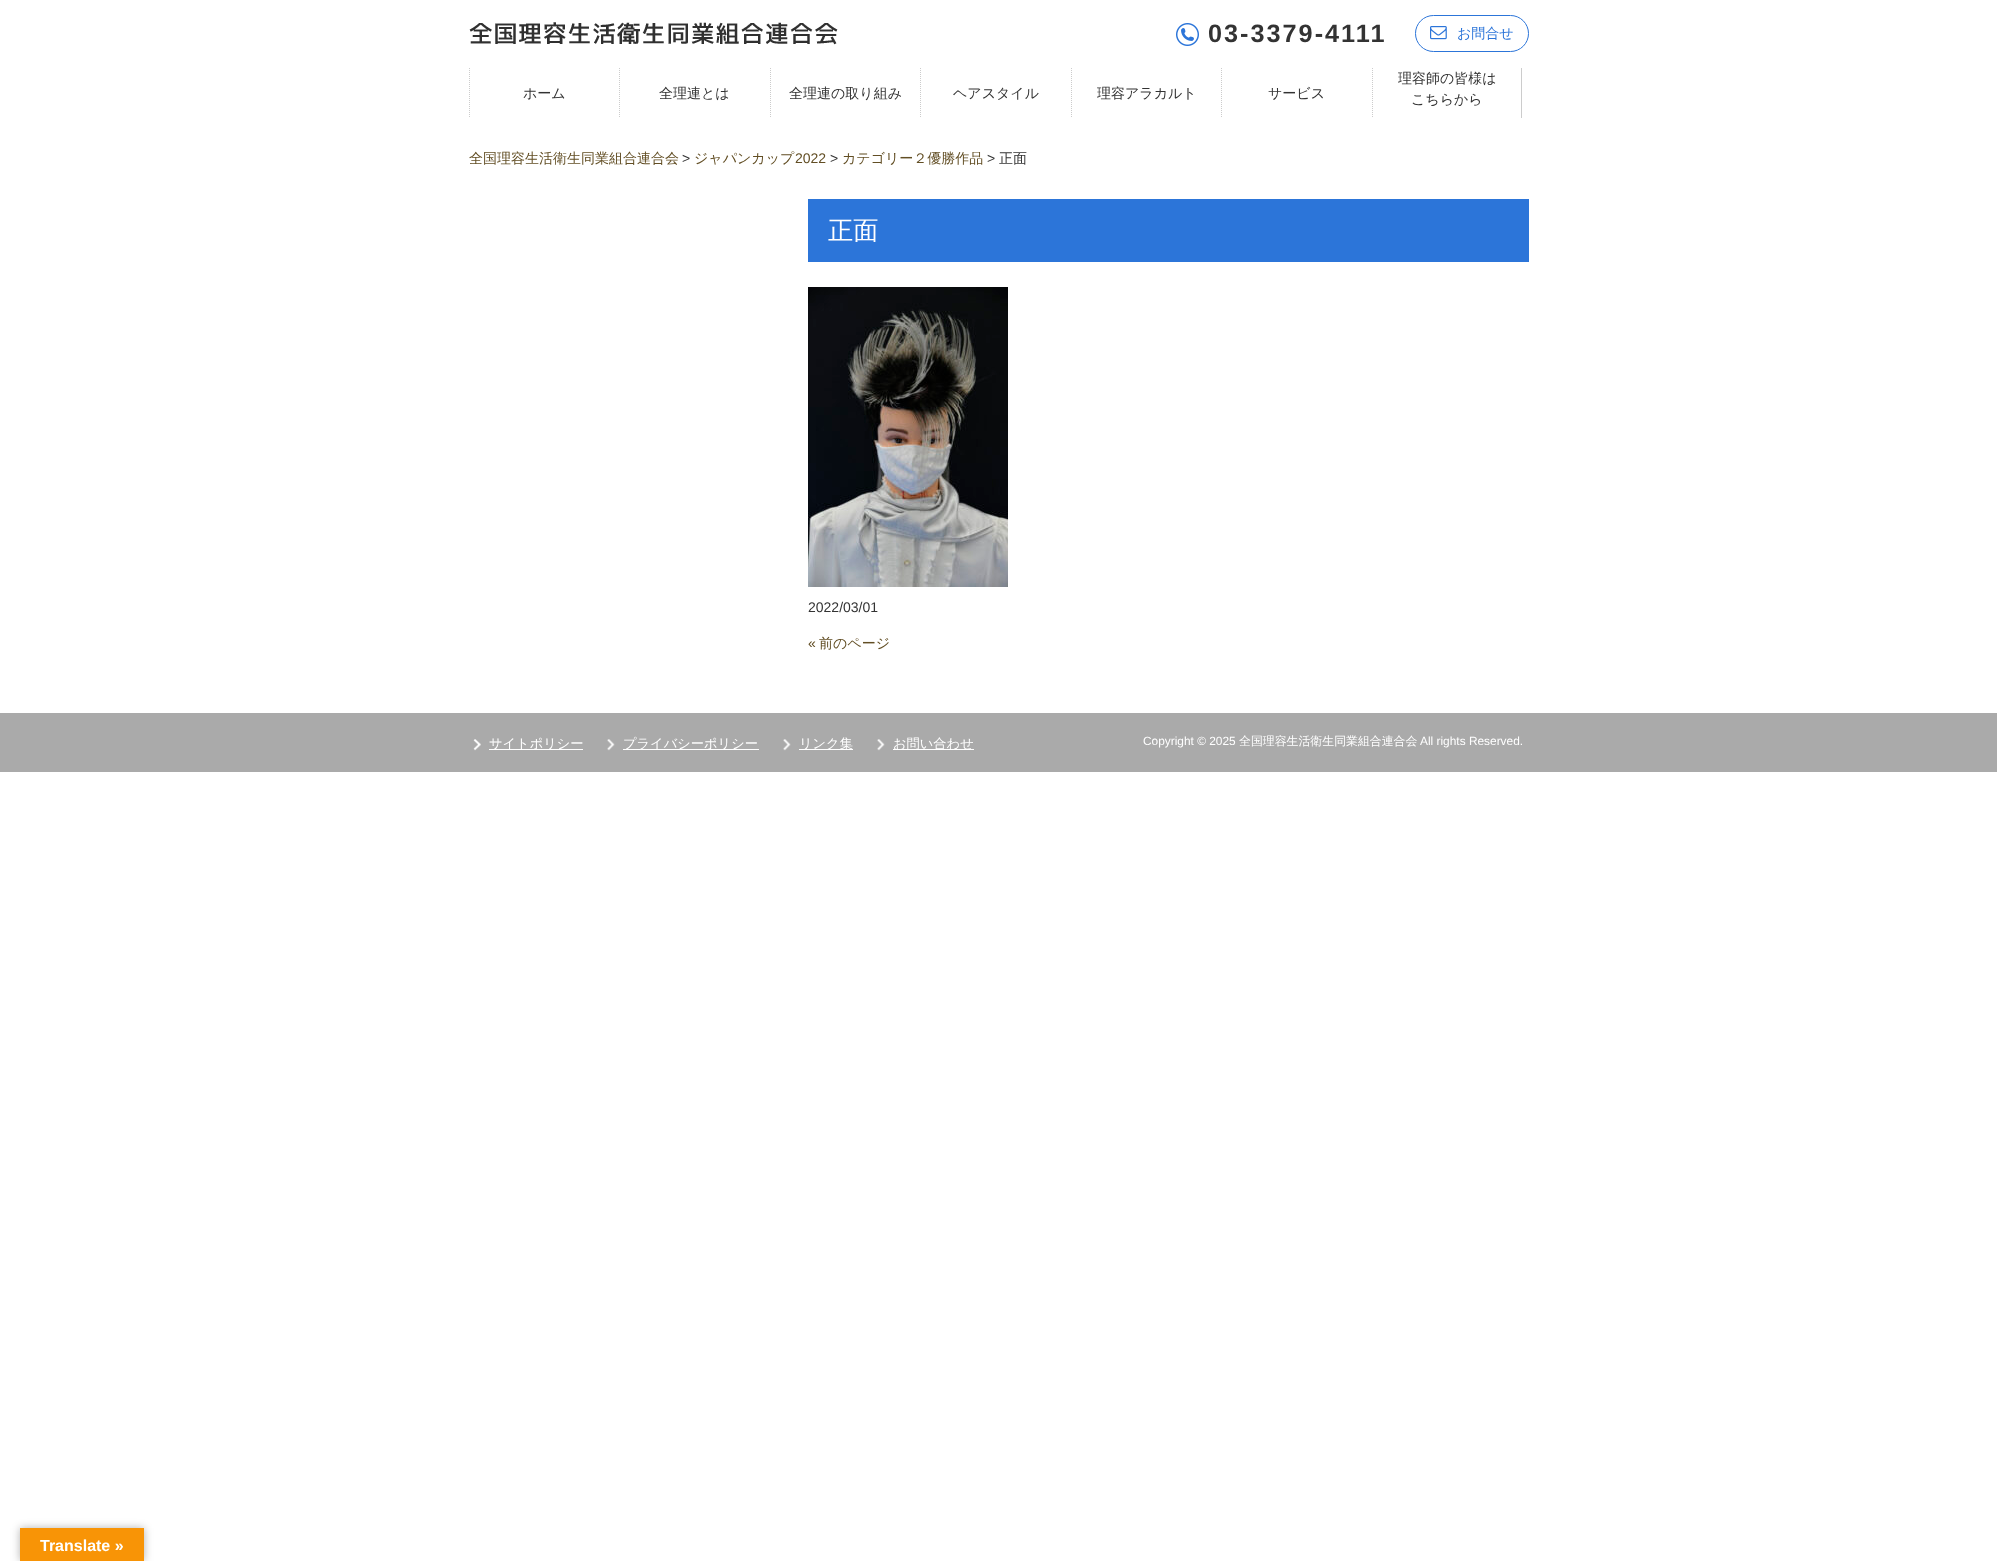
<svg xmlns="http://www.w3.org/2000/svg" width="1997" height="1561">
<rect width="100%" height="100%" fill="#fff"/>
<image x="469" y="22" width="369" height="23" href="media/1.png"/>
<image x="1176" y="23" width="23" height="23" href="media/2.png"/>
<text x="1208" y="42" style="font-family:Liberation Sans;font-size:25.25px;font-weight:bold;letter-spacing:2px;fill:#333">03-3379-4111</text>
<rect x="1415.5" y="15.5" width="113" height="36" rx="18" fill="none" stroke="#2c75d9"/>
<image x="1430" y="26" width="17" height="14" href="media/3.png"/>
<text x="1457" y="38" style="font-family:WenQuanYi Zen Hei;font-size:14px;font-weight:500;fill:#2c75d9">お問合せ</text>
<path d="M469.5 68v50" fill="none" stroke="#ccc" stroke-dasharray="1 1"/>
<text x="523" y="98" style="font-family:WenQuanYi Zen Hei;font-size:14px;font-weight:500;fill:#333">ホーム</text>
<path d="M619.5 68v50" fill="none" stroke="#ccc" stroke-dasharray="1 1"/>
<text x="659" y="98" style="font-family:WenQuanYi Zen Hei;font-size:14px;font-weight:500;fill:#333">全理連とは</text>
<path d="M770.5 68v50" fill="none" stroke="#ccc" stroke-dasharray="1 1"/>
<text x="789" y="98" style="font-family:WenQuanYi Zen Hei;font-size:14px;font-weight:500;fill:#333">全理連の取り組み</text>
<path d="M920.5 68v50" fill="none" stroke="#ccc" stroke-dasharray="1 1"/>
<text x="953" y="98" style="font-family:WenQuanYi Zen Hei;font-size:14px;font-weight:500;fill:#333">ヘアスタイル</text>
<path d="M1071.5 68v50" fill="none" stroke="#ccc" stroke-dasharray="1 1"/>
<text x="1097" y="98" style="font-family:WenQuanYi Zen Hei;font-size:14px;font-weight:500;fill:#333">理容アラカルト</text>
<path d="M1221.5 68v50" fill="none" stroke="#ccc" stroke-dasharray="1 1"/>
<text x="1268" y="98" style="font-family:WenQuanYi Zen Hei;font-size:14px;font-weight:500;fill:#333">サービス</text>
<rect x="1521" y="68" width="1" height="50" fill="#ccc"/>
<path d="M1372.5 68v50" fill="none" stroke="#ccc" stroke-dasharray="1 1"/>
<text x="1398" y="83" style="font-family:WenQuanYi Zen Hei;font-size:14px;font-weight:500;fill:#333">理容師の皆様は</text>
<text x="1411" y="104" style="font-family:WenQuanYi Zen Hei;font-size:14px;font-weight:500;fill:#333">こちらから</text>
<text x="469" y="163" style="font-family:WenQuanYi Zen Hei;font-size:14px;font-weight:500;fill:#624e24">全国理容生活衛生同業組合連合会</text>
<text x="682" y="163" style="font-family:Liberation Sans;font-size:14px;fill:#333">&gt;</text>
<text x="694" y="163" style="font-family:WenQuanYi Zen Hei;font-size:14px;font-weight:500;fill:#624e24">ジャパンカップ</text>
<text x="795" y="163" style="font-family:Liberation Sans;font-size:14px;fill:#624e24">2022</text>
<text x="830" y="163" style="font-family:Liberation Sans;font-size:14px;fill:#333">&gt;</text>
<text x="842" y="163" style="font-family:WenQuanYi Zen Hei;font-size:14px;font-weight:500;fill:#624e24">カテゴリー２優勝作品</text>
<text x="987" y="163" style="font-family:Liberation Sans;font-size:14px;fill:#333">&gt;</text>
<text x="999" y="163" style="font-family:WenQuanYi Zen Hei;font-size:14px;font-weight:500;fill:#333">正面</text>
<rect x="808" y="199" width="721" height="63" fill="#2c75d9"/>
<text x="828" y="239" style="font-family:WenQuanYi Zen Hei;font-size:25.25px;font-weight:500;fill:#fff">正面</text>
<image x="808" y="287" width="200" height="300" href="media/4.png"/>
<text x="808" y="612" style="font-family:Liberation Sans;font-size:14px;fill:#333">2022/03/01</text>
<text x="808" y="648" style="font-family:Liberation Sans;font-size:14px;fill:#624e24">«</text>
<text x="819" y="648" style="font-family:WenQuanYi Zen Hei;font-size:14px;font-weight:500;fill:#624e24">前のページ</text>
<rect y="713" width="1997" height="59" fill="#aaa"/>
<image x="473" y="739" width="8" height="12" href="media/5.png"/>
<rect x="489" y="749" width="94" height="1" fill="#fff"/>
<text x="489" y="748" style="font-family:WenQuanYi Zen Hei;font-size:13.25px;font-weight:500;fill:#fff">サイトポリシー</text>
<image x="607" y="739" width="8" height="12" href="media/6.png"/>
<rect x="623" y="749" width="136" height="1" fill="#fff"/>
<text x="623" y="748" style="font-family:WenQuanYi Zen Hei;font-size:13.25px;font-weight:500;fill:#fff">プライバシーポリシー</text>
<image x="783" y="739" width="8" height="12" href="media/6.png"/>
<rect x="799" y="749" width="54" height="1" fill="#fff"/>
<text x="799" y="748" style="font-family:WenQuanYi Zen Hei;font-size:13.25px;font-weight:500;fill:#fff">リンク集</text>
<image x="877" y="739" width="8" height="12" href="media/6.png"/>
<rect x="893" y="749" width="81" height="1" fill="#fff"/>
<text x="893" y="748" style="font-family:WenQuanYi Zen Hei;font-size:13.25px;font-weight:500;fill:#fff">お問い合わせ</text>
<text x="1143" y="745" style="font-family:Liberation Sans;font-size:11.9px;fill:#fff">Copyright © 2025</text>
<text x="1239" y="745" style="font-family:WenQuanYi Zen Hei;font-size:11.9px;font-weight:500;fill:#fff">全国理容生活衛生同業組合連合会</text>
<text x="1420" y="745" style="font-family:Liberation Sans;font-size:11.9px;fill:#fff">All rights Reserved.</text>
<rect x="20" y="1528" width="124" height="33" fill="#0000004d" filter="blur(4.5px)"/>
<rect x="20" y="1528" width="124" height="33" fill="#f89406"/>
<text x="40" y="1551" style="font-family:Liberation Sans;font-size:16px;font-weight:bold;fill:#fff">Translate »</text>
</svg>
